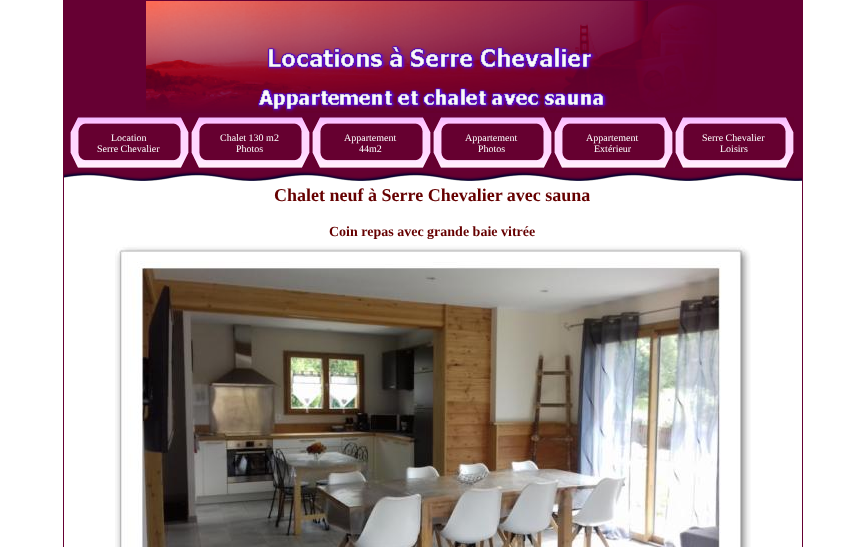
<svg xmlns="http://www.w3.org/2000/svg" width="865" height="547">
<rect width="100%" height="100%" fill="#fff"/>
<rect x="63.5" y="0.5" width="739" height="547" fill="none" stroke="#603"/>
<rect x="64" y="1" width="738" height="170" fill="#603"/>
<image x="146" y="1" width="571" height="112" href="media/1.png"/>
<image x="70" y="117" width="119" height="51" href="media/2.png"/>
<image x="71" y="117" width="117" height="47" href="media/3.png"/>
<text x="111" y="141" style="font-family:Liberation Serif;font-size:10px;fill:#fff">Location</text>
<text x="97" y="152" style="font-family:Liberation Serif;font-size:10px;fill:#fff">Serre Chevalier</text>
<image x="191" y="117" width="119" height="51" href="media/2.png"/>
<image x="192" y="117" width="117" height="47" href="media/3.png"/>
<text x="220" y="141" style="font-family:Liberation Serif;font-size:10px;fill:#fff">Chalet 130 m2</text>
<text x="236" y="152" style="font-family:Liberation Serif;font-size:10px;fill:#fff">Photos</text>
<image x="312" y="117" width="119" height="51" href="media/2.png"/>
<image x="313" y="117" width="117" height="47" href="media/3.png"/>
<text x="344" y="141" style="font-family:Liberation Serif;font-size:10px;fill:#fff">Appartement</text>
<text x="359" y="152" style="font-family:Liberation Serif;font-size:10px;fill:#fff">44m2</text>
<image x="433" y="117" width="119" height="51" href="media/2.png"/>
<image x="434" y="117" width="117" height="47" href="media/3.png"/>
<text x="465" y="141" style="font-family:Liberation Serif;font-size:10px;fill:#fff">Appartement</text>
<text x="478" y="152" style="font-family:Liberation Serif;font-size:10px;fill:#fff">Photos</text>
<image x="554" y="117" width="119" height="51" href="media/2.png"/>
<image x="555" y="117" width="117" height="47" href="media/3.png"/>
<text x="586" y="141" style="font-family:Liberation Serif;font-size:10px;fill:#fff">Appartement</text>
<text x="594" y="152" style="font-family:Liberation Serif;font-size:10px;fill:#fff">Extérieur</text>
<image x="675" y="117" width="119" height="51" href="media/2.png"/>
<image x="676" y="117" width="117" height="47" href="media/3.png"/>
<text x="702" y="141" style="font-family:Liberation Serif;font-size:10px;fill:#fff">Serre Chevalier</text>
<text x="720" y="152" style="font-family:Liberation Serif;font-size:10px;fill:#fff">Loisirs</text>
<image x="64" y="171" width="738" height="10" href="media/4.png"/>
<text x="274" y="201" style="font-family:Liberation Serif;font-size:18px;font-weight:bold;fill:#600">Chalet neuf à Serre Chevalier avec sauna</text>
<text x="329" y="236" style="font-family:Liberation Serif;font-size:14px;font-weight:bold;fill:#600">Coin repas avec grande baie vitrée</text>
<image x="115" y="245" width="636" height="302" href="media/5.png"/>
</svg>
